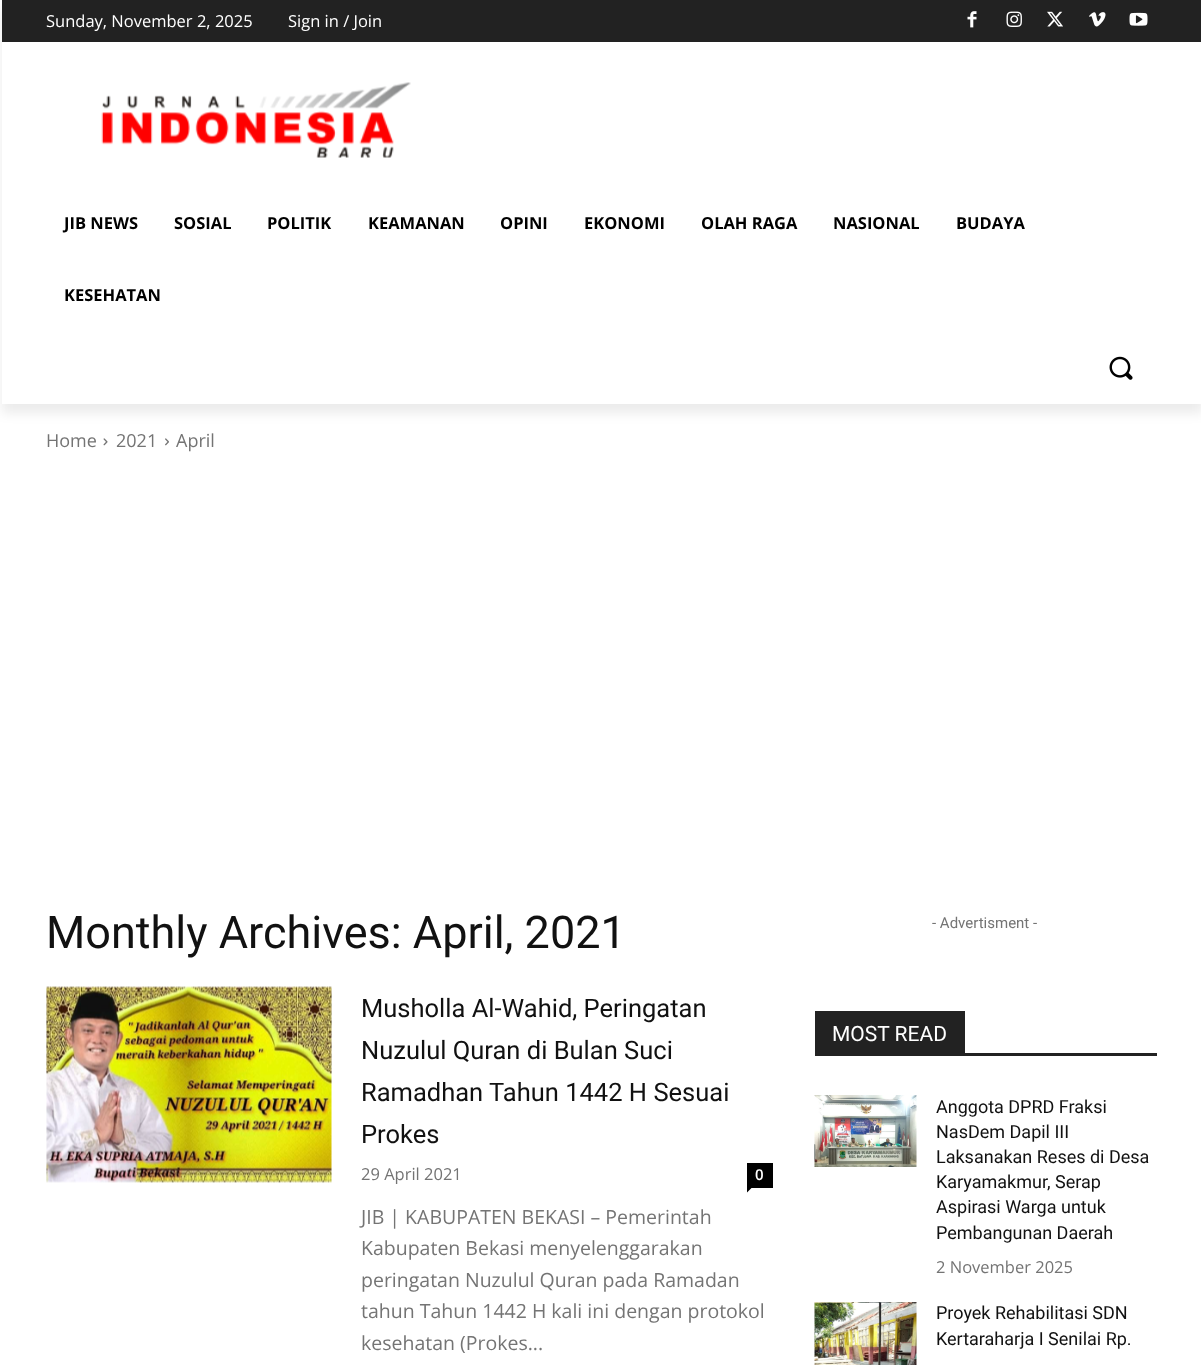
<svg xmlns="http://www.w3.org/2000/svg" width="1201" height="1365">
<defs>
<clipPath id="clip1"><path d="M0 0h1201v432h-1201zm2 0h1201v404h-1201z" clip-rule="evenodd"/></clipPath>
</defs>
<rect width="100%" height="100%" fill="#fff"/>
<rect x="2" width="1199" height="42" fill="#222"/>
<image x="967" y="11" width="10" height="17" href="media/1.png"/>
<image x="1006" y="11" width="16" height="16" href="media/2.png"/>
<image x="1047" y="11" width="16" height="16" href="media/3.png"/>
<image x="1089" y="12" width="17" height="15" href="media/4.png"/>
<image x="1129" y="12" width="19" height="14" href="media/5.png"/>
<image x="101" y="82" width="310" height="76" href="media/6.png"/>
<g clip-path="url(#clip1)">
<rect x="2" y="9" width="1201" height="404" fill="#00000014" filter="blur(6px)"/>
</g>
<text x="46" y="27" style="font-family:Open Sans;font-size:16.5px;fill:#fff">Sunday, November 2, 2025</text>
<text x="288" y="27" style="font-family:Open Sans;font-size:16.5px;fill:#fff">Sign in / Join</text>
<text x="64" y="229" style="font-family:Open Sans;font-size:16.5px;font-weight:bold;fill:#000">JIB NEWS</text>
<text x="174" y="229" style="font-family:Open Sans;font-size:16.5px;font-weight:bold;fill:#000">SOSIAL</text>
<text x="267" y="229" style="font-family:Open Sans;font-size:16.5px;font-weight:bold;fill:#000">POLITIK</text>
<text x="368" y="229" style="font-family:Open Sans;font-size:16.5px;font-weight:bold;fill:#000">KEAMANAN</text>
<text x="500" y="229" style="font-family:Open Sans;font-size:16.5px;font-weight:bold;fill:#000">OPINI</text>
<text x="584" y="229" style="font-family:Open Sans;font-size:16.5px;font-weight:bold;fill:#000">EKONOMI</text>
<text x="701" y="229" style="font-family:Open Sans;font-size:16.5px;font-weight:bold;fill:#000">OLAH RAGA</text>
<text x="833" y="229" style="font-family:Open Sans;font-size:16.5px;font-weight:bold;fill:#000">NASIONAL</text>
<text x="956" y="229" style="font-family:Open Sans;font-size:16.5px;font-weight:bold;fill:#000">BUDAYA</text>
<text x="64" y="301" style="font-family:Open Sans;font-size:16.5px;font-weight:bold;fill:#000">KESEHATAN</text>
<image x="1109" y="356" width="24" height="24" href="media/7.png"/>
<text x="46" y="447" style="font-family:Open Sans;font-size:18px;fill:#747474">Home</text>
<image x="103" y="438" width="5" height="8" href="media/8.png"/>
<text x="116" y="447" style="font-family:Open Sans;font-size:18px;fill:#747474">2021</text>
<image x="165" y="438" width="4" height="8" href="media/9.png"/>
<text x="176" y="447" style="font-family:Open Sans;font-size:18px;fill:#747474">April</text>
<text x="46" y="948" style="font-family:Roboto;font-size:45px;fill:#111">Monthly Archives: April, 2021</text>
<image x="46" y="986" width="286" height="197" href="media/10.png"/>
<text x="361" y="1017" style="font-family:Roboto;font-size:25.5px;fill:#111">Musholla Al-Wahid, Peringatan</text>
<text x="361" y="1059" style="font-family:Roboto;font-size:25.5px;fill:#111">Nuzulul Quran di Bulan Suci</text>
<text x="361" y="1101" style="font-family:Roboto;font-size:25.5px;fill:#111">Ramadhan Tahun 1442 H Sesuai</text>
<text x="361" y="1143" style="font-family:Roboto;font-size:25.5px;fill:#111">Prokes</text>
<text x="361" y="1180" style="font-family:Open Sans;font-size:16.5px;fill:#747474">29 April 2021</text>
<rect x="747" y="1163" width="26" height="25" fill="#000"/>
<text x="755" y="1180" style="font-family:Open Sans;font-size:15px;font-weight:600;fill:#fff">0</text>
<path d="M747 1188h4.5l-4.5 4.5z" fill="#000"/>
<text x="361" y="1224" style="font-family:Open Sans;font-size:19.5px;fill:#747474">JIB | KABUPATEN BEKASI – Pemerintah</text>
<text x="361" y="1255" style="font-family:Open Sans;font-size:19.5px;fill:#747474">Kabupaten Bekasi menyelenggarakan</text>
<text x="361" y="1287" style="font-family:Open Sans;font-size:19.5px;fill:#747474">peringatan Nuzulul Quran pada Ramadan</text>
<text x="361" y="1318" style="font-family:Open Sans;font-size:19.5px;fill:#747474">tahun Tahun 1442 H kali ini dengan protokol</text>
<text x="361" y="1350" style="font-family:Open Sans;font-size:19.5px;fill:#747474">kesehatan (Prokes...</text>
<text x="932" y="928" style="font-family:Roboto;font-size:15px;fill:#747474">- Advertisment -</text>
<rect x="815" y="1053" width="342" height="3" fill="#222"/>
<rect x="815" y="1011" width="150" height="42" fill="#222"/>
<text x="832" y="1041" style="font-family:Roboto;font-size:21px;fill:#fff">MOST READ</text>
<image x="814" y="1095" width="103" height="72" href="media/11.png"/>
<text x="936" y="1113" style="font-family:Roboto;font-size:18px;fill:#111">Anggota DPRD Fraksi</text>
<text x="936" y="1138" style="font-family:Roboto;font-size:18px;fill:#111">NasDem Dapil III</text>
<text x="936" y="1163" style="font-family:Roboto;font-size:18px;fill:#111">Laksanakan Reses di Desa</text>
<text x="936" y="1188" style="font-family:Roboto;font-size:18px;fill:#111">Karyamakmur, Serap</text>
<text x="936" y="1213" style="font-family:Roboto;font-size:18px;fill:#111">Aspirasi Warga untuk</text>
<text x="936" y="1239" style="font-family:Roboto;font-size:18px;fill:#111">Pembangunan Daerah</text>
<text x="936" y="1273" style="font-family:Open Sans;font-size:16.5px;fill:#747474">2 November 2025</text>
<image x="814" y="1302" width="103" height="63" href="media/12.png"/>
<text x="936" y="1319" style="font-family:Roboto;font-size:18px;fill:#111">Proyek Rehabilitasi SDN</text>
<text x="936" y="1345" style="font-family:Roboto;font-size:18px;fill:#111">Kertaraharja I Senilai Rp.</text>
</svg>
